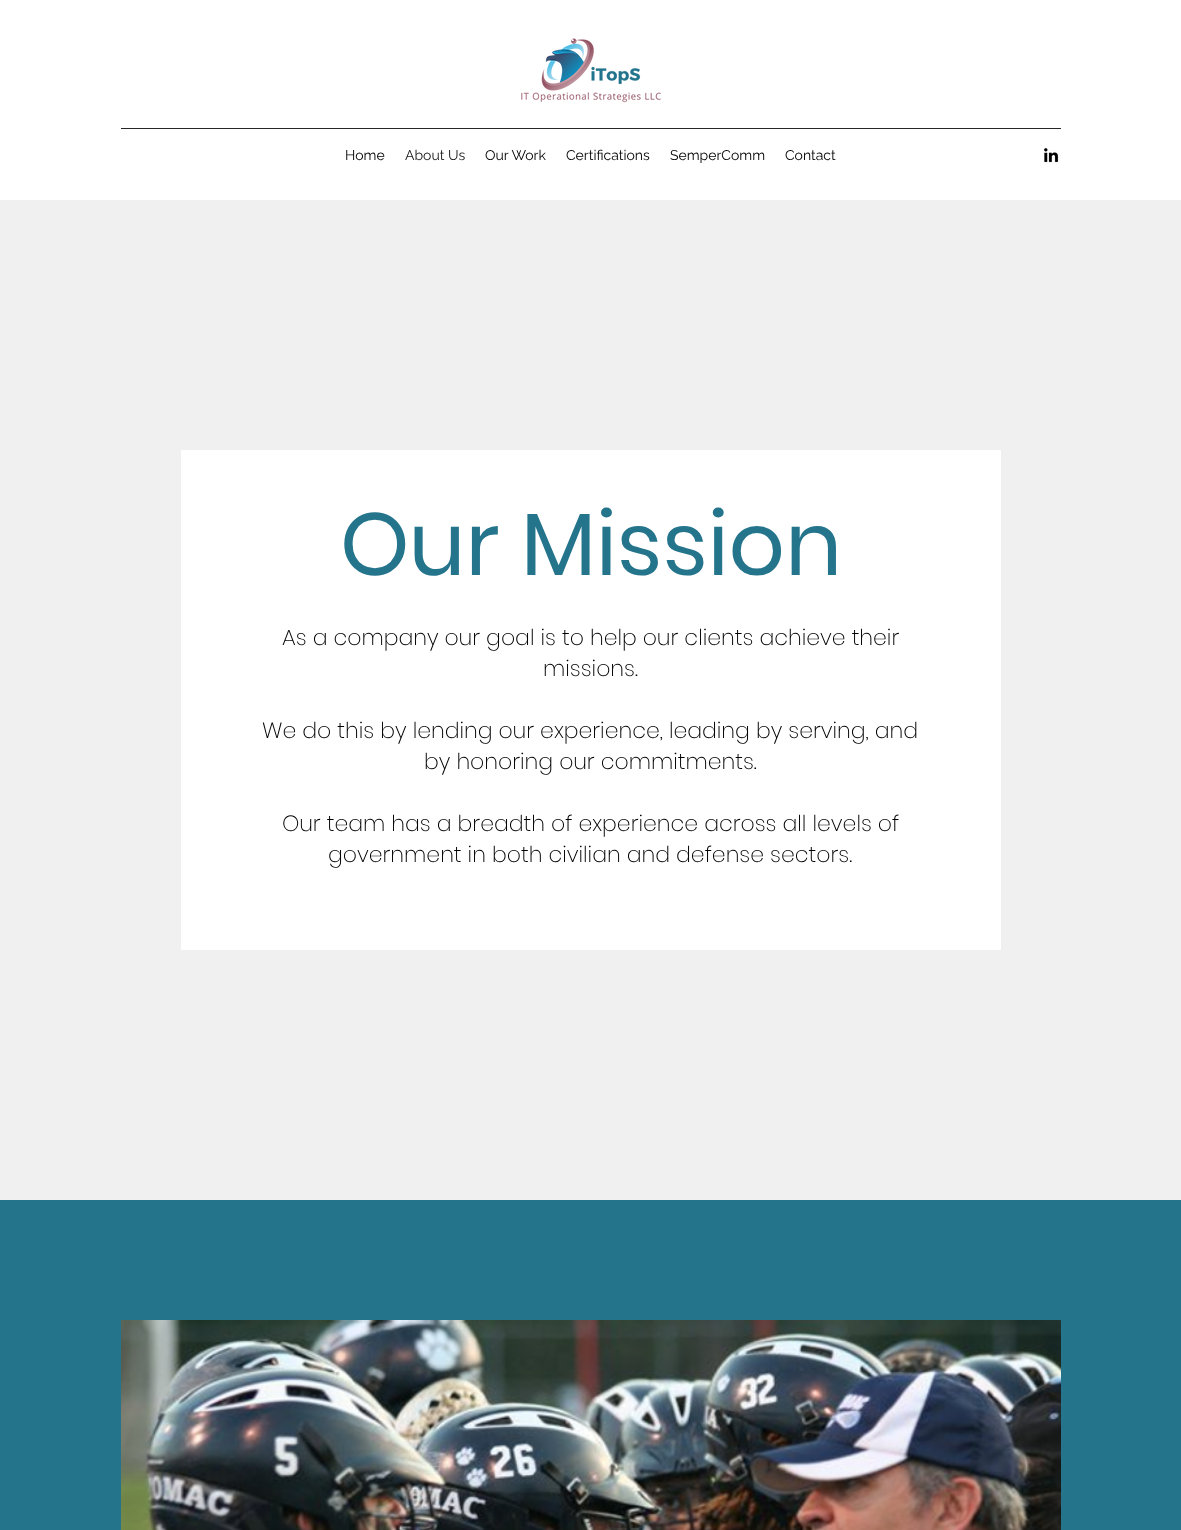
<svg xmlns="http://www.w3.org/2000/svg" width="1181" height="1530">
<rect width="100%" height="100%" fill="#fff"/>
<image x="521" y="38" width="140" height="65" href="media/1.png"/>
<rect x="121" y="128" width="940" height="1" fill="#262626"/>
<text x="345" y="160" style="font-family:Raleway;font-size:14px;fill:#000">Home</text>
<text x="405" y="160" style="font-family:Raleway;font-size:14px;fill:#161616">About Us</text>
<text x="485" y="160" style="font-family:Raleway;font-size:14px;fill:#000">Our Work</text>
<text x="566" y="160" style="font-family:Raleway;font-size:14px;fill:#000">Certifications</text>
<text x="670" y="160" style="font-family:Raleway;font-size:14px;fill:#000">SemperComm</text>
<text x="785" y="160" style="font-family:Raleway;font-size:14px;fill:#000">Contact</text>
<image x="1044" y="148" width="15" height="15" href="media/2.png"/>
<rect y="200" width="1181" height="1000" fill="#f0f0f0"/>
<rect x="181" y="450" width="820" height="500" fill="#fff"/>
<text x="340" y="575" style="font-family:Poppins;font-size:88px;fill:#24748c">Our Mission</text>
<text x="282" y="645" style="font-family:Poppins;font-size:22px;font-weight:200;fill:#000">As a company our goal is to help our clients achieve their</text>
<text x="543" y="676" style="font-family:Poppins;font-size:22px;font-weight:200;fill:#000">missions.</text>
<text x="262" y="738" style="font-family:Poppins;font-size:22px;font-weight:200;fill:#000">We do this by lending our experience, leading by serving, and</text>
<text x="424" y="769" style="font-family:Poppins;font-size:22px;font-weight:200;fill:#000">by honoring our commitments.</text>
<text x="282" y="831" style="font-family:Poppins;font-size:22px;font-weight:200;fill:#000">Our team has a breadth of experience across all levels of</text>
<text x="328" y="862" style="font-family:Poppins;font-size:22px;font-weight:200;fill:#000">government in both civilian and defense sectors.</text>
<rect y="1200" width="1181" height="330" fill="#24748c"/>
<image x="121" y="1320" width="940" height="210" href="media/3.png"/>
</svg>
